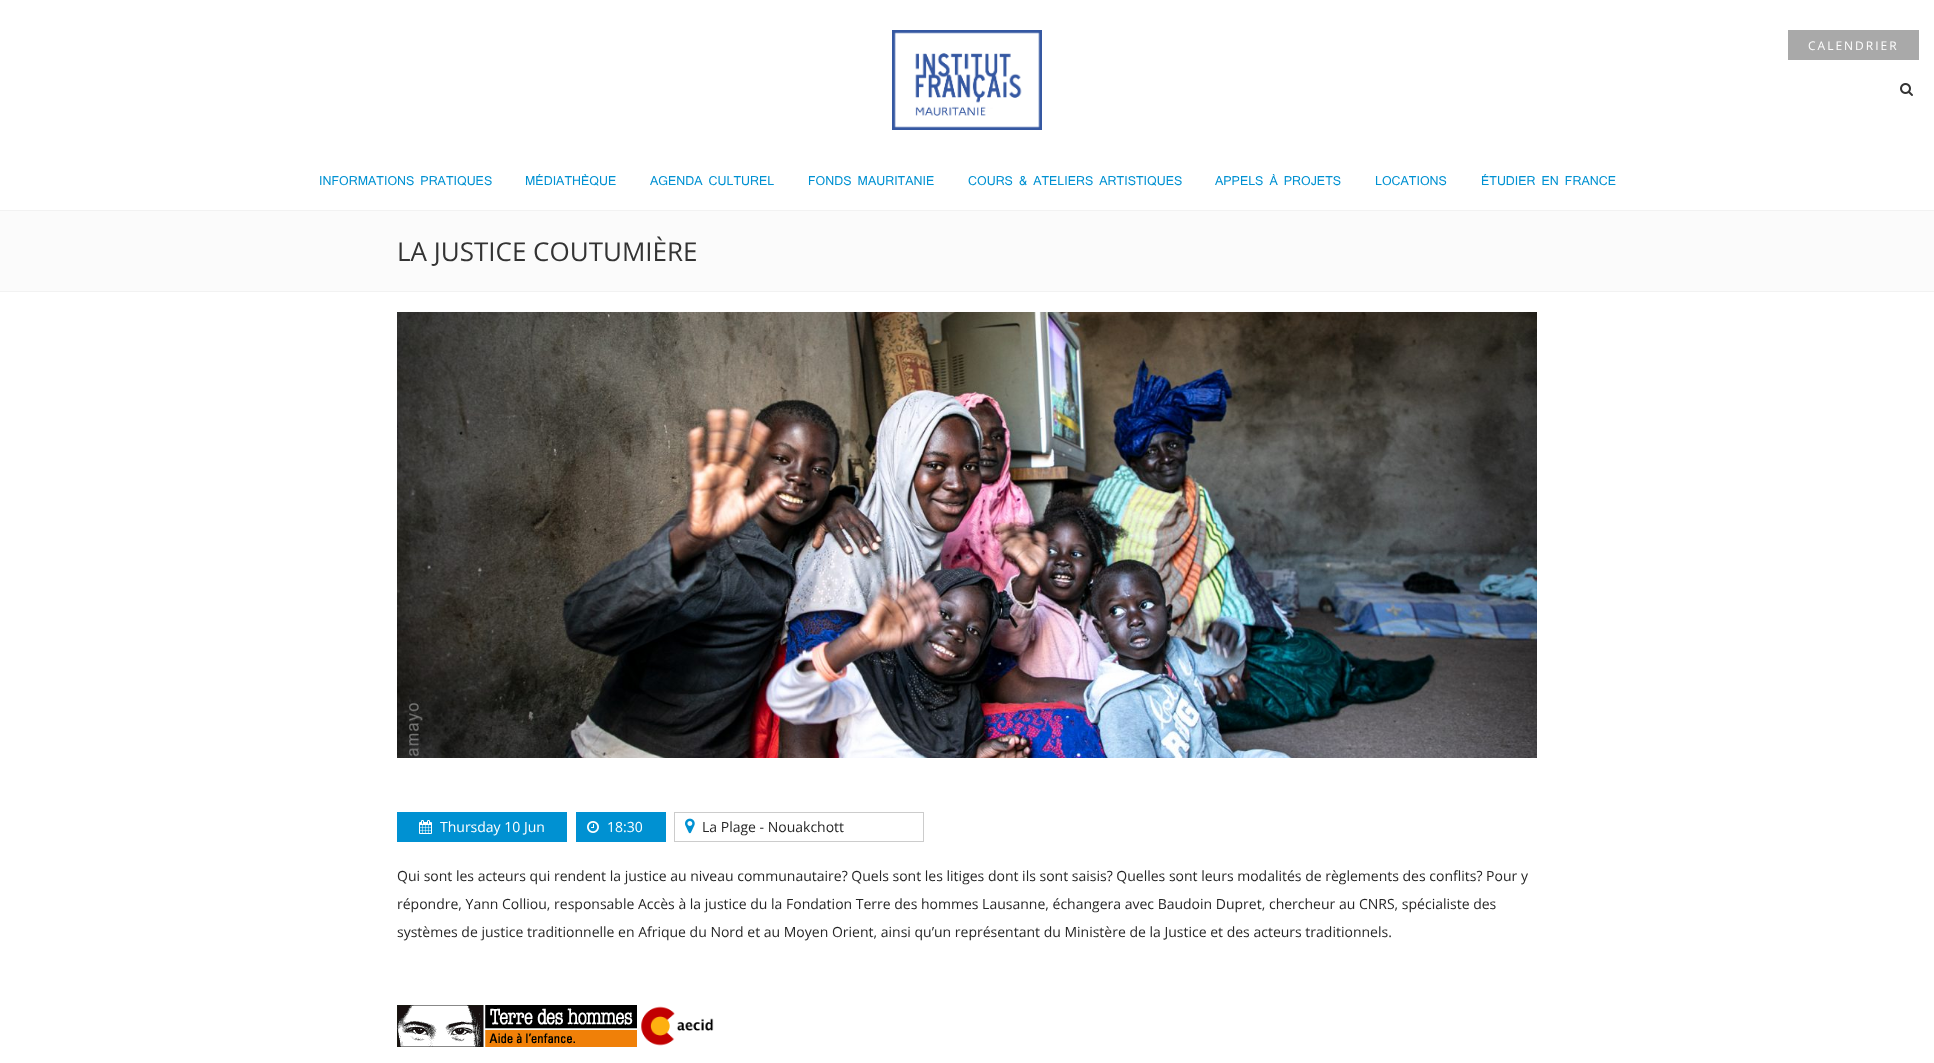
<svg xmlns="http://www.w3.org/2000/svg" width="1934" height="1063">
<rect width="100%" height="100%" fill="#fff"/>
<image x="892" y="30" width="150" height="100" href="media/1.png"/>
<rect x="1788" y="30" width="131" height="30" fill="#a9a9a9"/>
<text x="1808" y="50" style="font-family:Open Sans;font-size:12px;letter-spacing:2px;fill:#fff">CALENDRIER</text>
<image x="1900" y="83" width="13" height="13" href="media/2.png"/>
<text x="319" y="185" style="font-family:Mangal;font-size:12px;fill:#0091d2">INFORMATIONS PRATIQUES</text>
<text x="525" y="185" style="font-family:Mangal;font-size:12px;fill:#0091d2">MÉDIATHÈQUE</text>
<text x="650" y="185" style="font-family:Mangal;font-size:12px;fill:#0091d2">AGENDA CULTUREL</text>
<text x="808" y="185" style="font-family:Mangal;font-size:12px;fill:#0091d2">FONDS MAURITANIE</text>
<text x="968" y="185" style="font-family:Mangal;font-size:12px;fill:#0091d2">COURS &amp; ATELIERS ARTISTIQUES</text>
<text x="1215" y="185" style="font-family:Mangal;font-size:12px;fill:#0091d2">APPELS À PROJETS</text>
<text x="1375" y="185" style="font-family:Mangal;font-size:12px;fill:#0091d2">LOCATIONS</text>
<text x="1481" y="185" style="font-family:Mangal;font-size:12px;fill:#0091d2">ÉTUDIER EN FRANCE</text>
<rect y="211" width="1934" height="80" fill="#fbfbfb"/>
<rect y="210" width="1934" height="1" fill="#f2f2f2"/>
<rect y="291" width="1934" height="1" fill="#f2f2f2"/>
<text x="397" y="261" style="font-family:Open Sans;font-size:26px;fill:#333">LA JUSTICE COUTUMIÈRE</text>
<image x="397" y="312" width="1140" height="446" href="media/3.png"/>
<rect x="397" y="812" width="170" height="30" fill="#0091d2"/>
<image x="419" y="820" width="13" height="14" href="media/4.png"/>
<text x="440" y="832" style="font-family:Open Sans;font-size:14px;fill:#fff">Thursday 10 Jun</text>
<rect x="576" y="812" width="90" height="30" fill="#0091d2"/>
<image x="587" y="821" width="12" height="12" href="media/5.png"/>
<text x="607" y="832" style="font-family:Open Sans;font-size:14px;fill:#fff">18:30</text>
<rect x="674.5" y="812.5" width="249" height="29" fill="none" stroke="#ccc"/>
<image x="685" y="818" width="10" height="16" href="media/6.png"/>
<text x="702" y="832" style="font-family:Open Sans;font-size:14px;fill:#262626">La Plage - Nouakchott</text>
<text x="397" y="881" style="font-family:Open Sans;font-size:14px;fill:#262626">Qui sont les acteurs qui rendent la justice au niveau communautaire? Quels sont les litiges dont ils sont saisis? Quelles sont leurs modalités de règlements des conflits? Pour y</text>
<text x="397" y="909" style="font-family:Open Sans;font-size:14px;fill:#262626">répondre, Yann Colliou, responsable Accès à la justice du la Fondation Terre des hommes Lausanne, échangera avec Baudoin Dupret, chercheur au CNRS, spécialiste des</text>
<text x="397" y="937" style="font-family:Open Sans;font-size:14px;fill:#262626">systèmes de justice traditionnelle en Afrique du Nord et au Moyen Orient, ainsi qu’un représentant du Ministère de la Justice et des acteurs traditionnels.</text>
<image x="397" y="1005" width="240" height="42" href="media/7.png"/>
<image x="641" y="1006" width="73" height="40" href="media/8.png"/>
</svg>
